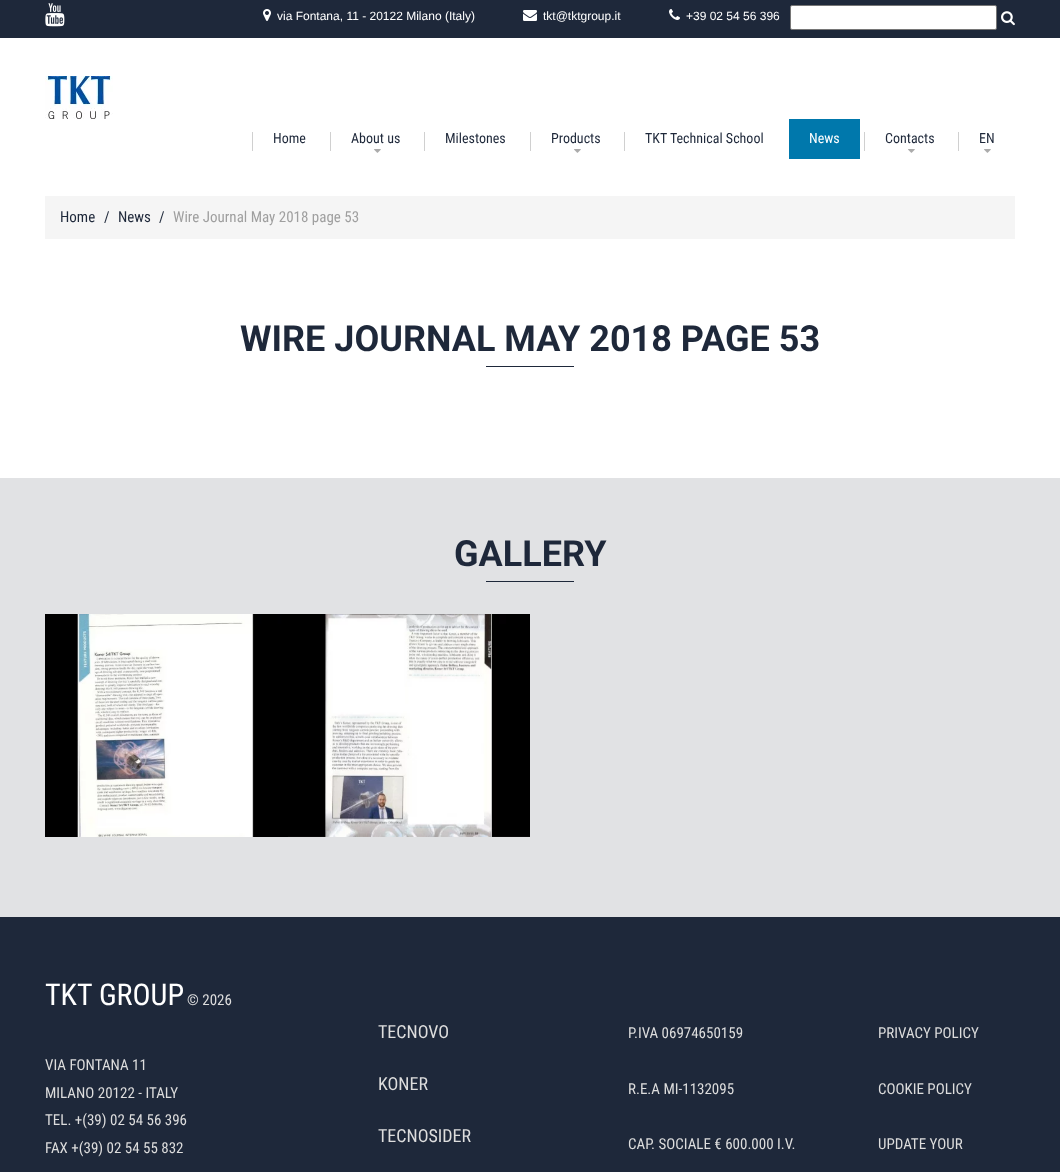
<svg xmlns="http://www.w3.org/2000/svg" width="1060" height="1172">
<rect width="100%" height="100%" fill="#1e283a"/>
<rect y="38" width="1060" height="440" fill="#fff"/>
<image x="45" y="3" width="20" height="24" href="media/1.png"/>
<image x="263" y="9" width="8" height="12" href="media/2.png"/>
<text x="277" y="20" style="font-family:Liberation Sans;font-size:12px;fill:#fff">via Fontana, 11 - 20122 Milano (Italy)</text>
<image x="523" y="10" width="14" height="11" href="media/3.png"/>
<text x="543" y="20" style="font-family:Liberation Sans;font-size:12px;fill:#fff">tkt@tktgroup.it</text>
<image x="669" y="9" width="11" height="11" href="media/4.png"/>
<text x="686" y="20" style="font-family:Liberation Sans;font-size:12px;fill:#fff">+39 02 54 56 396</text>
<rect x="790.5" y="5.5" width="206" height="24" rx="1.5" fill="#fff" stroke="#767676"/>
<image x="1001" y="11" width="14" height="15" href="media/5.png"/>
<image x="45" y="76" width="68" height="43" href="media/6.png"/>
<rect x="252" y="132" width="1" height="19" fill="#d0d0d0"/>
<text x="273" y="143" style="font-family:Roboto Condensed;font-size:14px;fill:#1e283a">Home</text>
<rect x="330" y="132" width="1" height="19" fill="#d0d0d0"/>
<text x="351" y="143" style="font-family:Roboto Condensed;font-size:14px;fill:#1e283a">About us</text>
<image x="374" y="149" width="7" height="4" href="media/7.png"/>
<rect x="424" y="132" width="1" height="19" fill="#d0d0d0"/>
<text x="445" y="143" style="font-family:Roboto Condensed;font-size:14px;fill:#1e283a">Milestones</text>
<rect x="530" y="132" width="1" height="19" fill="#d0d0d0"/>
<text x="551" y="143" style="font-family:Roboto Condensed;font-size:14px;fill:#1e283a">Products</text>
<image x="574" y="149" width="7" height="4" href="media/7.png"/>
<rect x="624" y="132" width="1" height="19" fill="#d0d0d0"/>
<text x="645" y="143" style="font-family:Roboto Condensed;font-size:14px;fill:#1e283a">TKT Technical School</text>
<rect x="789" y="119" width="71" height="40" fill="#0078ac"/>
<text x="809" y="143" style="font-family:Roboto Condensed;font-size:14px;fill:#fff">News</text>
<rect x="864" y="132" width="1" height="19" fill="#d0d0d0"/>
<text x="885" y="143" style="font-family:Roboto Condensed;font-size:14px;fill:#1e283a">Contacts</text>
<image x="908" y="149" width="7" height="4" href="media/7.png"/>
<rect x="958" y="132" width="1" height="19" fill="#d0d0d0"/>
<text x="979" y="143" style="font-family:Roboto Condensed;font-size:14px;fill:#1e283a">EN</text>
<image x="984" y="149" width="7" height="4" href="media/7.png"/>
<rect x="45" y="196" width="970" height="43" fill="#f5f5f5"/>
<text x="60" y="222" style="font-family:Roboto Condensed;font-size:15px;fill:#1e283a">Home</text>
<text x="104" y="222" style="font-family:Roboto Condensed;font-size:15px;fill:#1e283a">/</text>
<text x="118" y="222" style="font-family:Roboto Condensed;font-size:15px;fill:#1e283a">News</text>
<text x="159" y="222" style="font-family:Roboto Condensed;font-size:15px;fill:#1e283a">/</text>
<text x="173" y="222" style="font-family:Roboto Condensed;font-size:15px;fill:#9f9f9f">Wire Journal May 2018 page 53</text>
<text x="240" y="351" style="font-family:Roboto;font-size:36px;font-weight:bold;fill:#1e283a">WIRE JOURNAL MAY 2018 PAGE 53</text>
<rect x="486" y="366" width="88" height="1" fill="#1e283a"/>
<rect y="478" width="1060" height="439" fill="#e1e2e4"/>
<text x="454" y="566" style="font-family:Roboto;font-size:36px;font-weight:bold;fill:#1e283a">GALLERY</text>
<rect x="486" y="581" width="88" height="1" fill="#1e283a"/>
<image x="45" y="614" width="243" height="223" href="media/8.png"/>
<image x="288" y="614" width="242" height="223" href="media/9.png"/>
<text x="45" y="1005" style="font-family:Roboto Condensed;font-size:30px;fill:#fff">TKT GROUP</text>
<text x="187" y="1005" style="font-family:Roboto Condensed;font-size:15px;fill:#ddd">© 2026</text>
<text x="45" y="1070" style="font-family:Roboto Condensed;font-size:15px;fill:#ddd">VIA FONTANA 11</text>
<text x="45" y="1098" style="font-family:Roboto Condensed;font-size:15px;fill:#ddd">MILANO 20122 - ITALY</text>
<text x="45" y="1125" style="font-family:Roboto Condensed;font-size:15px;fill:#ddd">TEL. +(39) 02 54 56 396</text>
<text x="45" y="1153" style="font-family:Roboto Condensed;font-size:15px;fill:#ddd">FAX +(39) 02 54 55 832</text>
<text x="378" y="1038" style="font-family:Roboto Condensed;font-size:18px;fill:#ddd">TECNOVO</text>
<text x="378" y="1090" style="font-family:Roboto Condensed;font-size:18px;fill:#ddd">KONER</text>
<text x="378" y="1142" style="font-family:Roboto Condensed;font-size:18px;fill:#ddd">TECNOSIDER</text>
<text x="628" y="1038" style="font-family:Roboto Condensed;font-size:15px;fill:#ddd">P.IVA 06974650159</text>
<text x="628" y="1094" style="font-family:Roboto Condensed;font-size:15px;fill:#ddd">R.E.A MI-1132095</text>
<text x="628" y="1149" style="font-family:Roboto Condensed;font-size:15px;fill:#ddd">CAP. SOCIALE € 600.000 I.V.</text>
<text x="878" y="1038" style="font-family:Roboto Condensed;font-size:15px;fill:#ddd">PRIVACY POLICY</text>
<text x="878" y="1094" style="font-family:Roboto Condensed;font-size:15px;fill:#ddd">COOKIE POLICY</text>
<text x="878" y="1149" style="font-family:Roboto Condensed;font-size:15px;fill:#ddd">UPDATE YOUR</text>
</svg>
